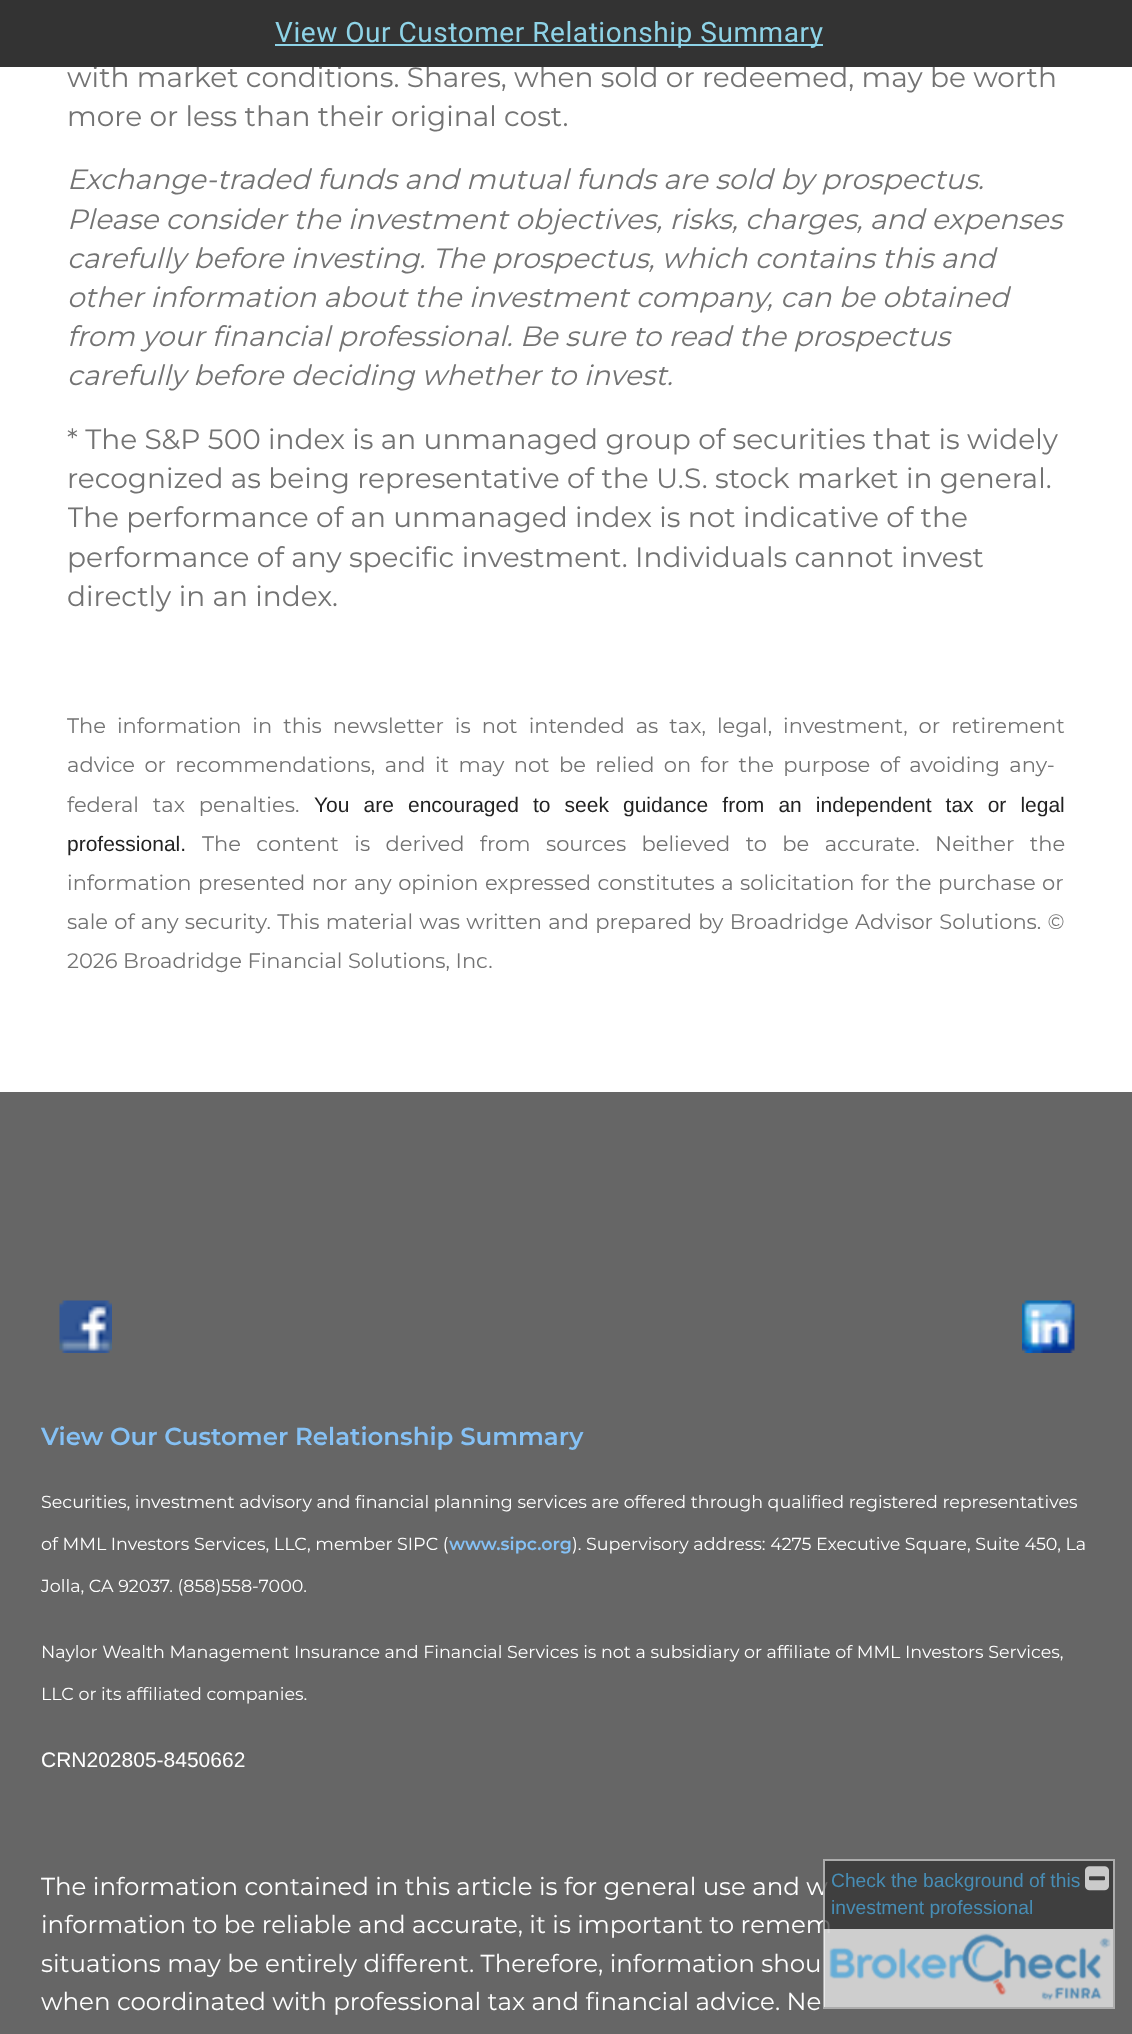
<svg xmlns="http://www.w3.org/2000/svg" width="1132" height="2034">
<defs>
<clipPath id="clip1"><rect x="68" width="998" height="1005"/></clipPath>
</defs>
<rect width="100%" height="100%" fill="#fff"/>
<text x="67" y="87" style="font-family:Montserrat;font-size:28px;fill:#737373">with market conditions. Shares, when sold or redeemed, may be worth</text>
<rect width="1132" height="67" fill="#333"/>
<rect x="275" y="44" width="548" height="2" fill="#8ed3e7"/>
<text x="275" y="42" style="font-family:Roboto;font-size:28px;letter-spacing:0.55px;fill:#8ed3e7">View Our Customer Relationship Summary</text>
<text x="67" y="126" style="font-family:Montserrat;font-size:28px;fill:#737373">more or less than their original cost.</text>
<text x="67" y="189" style="font-family:Montserrat;font-size:28px;font-style:italic;fill:#737373">Exchange-traded funds and mutual funds are sold by prospectus.</text>
<text x="67" y="229" style="font-family:Montserrat;font-size:28px;font-style:italic;fill:#737373">Please consider the investment objectives, risks, charges, and expenses</text>
<text x="67" y="268" style="font-family:Montserrat;font-size:28px;font-style:italic;fill:#737373">carefully before investing. The prospectus, which contains this and</text>
<text x="67" y="307" style="font-family:Montserrat;font-size:28px;font-style:italic;fill:#737373">other information about the investment company, can be obtained</text>
<text x="67" y="346" style="font-family:Montserrat;font-size:28px;font-style:italic;fill:#737373">from your financial professional. Be sure to read the prospectus</text>
<text x="67" y="385" style="font-family:Montserrat;font-size:28px;font-style:italic;fill:#737373">carefully before deciding whether to invest.</text>
<text x="67" y="449" style="font-family:Montserrat;font-size:28px;fill:#737373">* The S&amp;P 500 index is an unmanaged group of securities that is widely</text>
<text x="67" y="488" style="font-family:Montserrat;font-size:28px;fill:#737373">recognized as being representative of the U.S. stock market in general.</text>
<g clip-path="url(#clip1)">
<text x="67" y="527" style="font-family:Montserrat;font-size:28px;fill:#737373">The performance of an unmanaged index is not indicative of the</text>
</g>
<text x="67" y="567" style="font-family:Montserrat;font-size:28px;fill:#737373">performance of any specific investment. Individuals cannot invest</text>
<text x="67" y="606" style="font-family:Montserrat;font-size:28px;fill:#737373">directly in an index.</text>
<text x="67" y="733" word-spacing="5.5" style="font-family:Montserrat;font-size:21px;fill:#737373">The information in this newsletter is not intended as tax, legal, investment, or retirement</text>
<text x="67" y="772" word-spacing="3.9" style="font-family:Montserrat;font-size:21px;fill:#737373">advice or recommendations, and it may not be relied on for the purpose of avoiding any-</text>
<text x="67" y="812" word-spacing="8.25" style="font-family:Montserrat;font-size:21px;fill:#737373">federal tax penalties.</text>
<text x="314" y="812" word-spacing="8.25" style="font-family:Liberation Sans;font-size:21px;fill:#222">You are encouraged to seek guidance from an independent tax or legal</text>
<text x="67" y="851" style="font-family:Liberation Sans;font-size:21px;fill:#222">professional.</text>
<text x="202" y="851" word-spacing="9.9" style="font-family:Montserrat;font-size:21px;fill:#737373">The content is derived from sources believed to be accurate. Neither the</text>
<text x="67" y="890" word-spacing="1" style="font-family:Montserrat;font-size:21px;fill:#737373">information presented nor any opinion expressed constitutes a solicitation for the purchase or</text>
<text x="67" y="929" word-spacing="0.75" style="font-family:Montserrat;font-size:21px;fill:#737373">sale of any security. This material was written and prepared by Broadridge Advisor Solutions. ©</text>
<text x="67" y="968" style="font-family:Montserrat;font-size:21px;fill:#737373">2026 Broadridge Financial Solutions, Inc.</text>
<rect y="1092" width="1132" height="942" fill="#666"/>
<image x="59" y="1300" width="53" height="53" href="media/1.png"/>
<image x="1022" y="1300" width="53" height="53" href="media/2.png"/>
<text x="41" y="1445" style="font-family:Montserrat;font-size:24.5px;font-weight:600;fill:#85c1f5">View Our Customer Relationship Summary</text>
<text x="41" y="1508" style="font-family:Montserrat;font-size:17.5px;fill:#fff">Securities, investment advisory and financial planning services are offered through qualified registered representatives</text>
<text x="41" y="1550" style="font-family:Montserrat;font-size:17.5px;fill:#fff">of MML Investors Services, LLC, member SIPC (</text>
<text x="449" y="1550" style="font-family:Montserrat;font-size:17.5px;font-weight:600;fill:#85c1f5">www.sipc.org</text>
<text x="572" y="1550" style="font-family:Montserrat;font-size:17.5px;fill:#fff">). Supervisory address: 4275 Executive Square, Suite 450, La</text>
<text x="41" y="1592" style="font-family:Montserrat;font-size:17.5px;fill:#fff">Jolla, CA 92037. (858)558-7000.</text>
<text x="41" y="1658" style="font-family:Montserrat;font-size:17.5px;fill:#fff">Naylor Wealth Management Insurance and Financial Services is not a subsidiary or affiliate of MML Investors Services,</text>
<text x="41" y="1700" style="font-family:Montserrat;font-size:17.5px;fill:#fff">LLC or its affiliated companies.</text>
<text x="41" y="1767" style="font-family:Liberation Sans;font-size:21px;fill:#fff">CRN202805-8450662</text>
<text x="41" y="1895" style="font-family:Montserrat;font-size:24.5px;fill:#fff">The information contained in this article is for general use and w</text>
<text x="41" y="1933" style="font-family:Montserrat;font-size:24.5px;fill:#fff">information to be reliable and accurate, it is important to remem</text>
<text x="41" y="1972" style="font-family:Montserrat;font-size:24.5px;fill:#fff">situations may be entirely different. Therefore, information shou</text>
<text x="41" y="2010" style="font-family:Montserrat;font-size:24.5px;fill:#fff">when coordinated with professional tax and financial advice. Ne</text>
<rect x="823" y="1859" width="292" height="150" fill="#333333bf"/>
<rect x="824" y="1860" width="290" height="148" fill="none" stroke="#d2d2d2bf" stroke-width="2"/>
<text x="831" y="1887" style="font-family:Liberation Sans;font-size:19.25px;fill:#478db5">Check the background of this</text>
<text x="831" y="1914" style="font-family:Liberation Sans;font-size:19.25px;fill:#478db5">investment professional</text>
<image x="1085" y="1866" width="24" height="25" href="media/3.png"/>
<rect x="824" y="1929" width="289" height="78" fill="#ffffffbf"/>
<image x="829" y="1933" width="282" height="68" href="media/4.png"/>
</svg>
